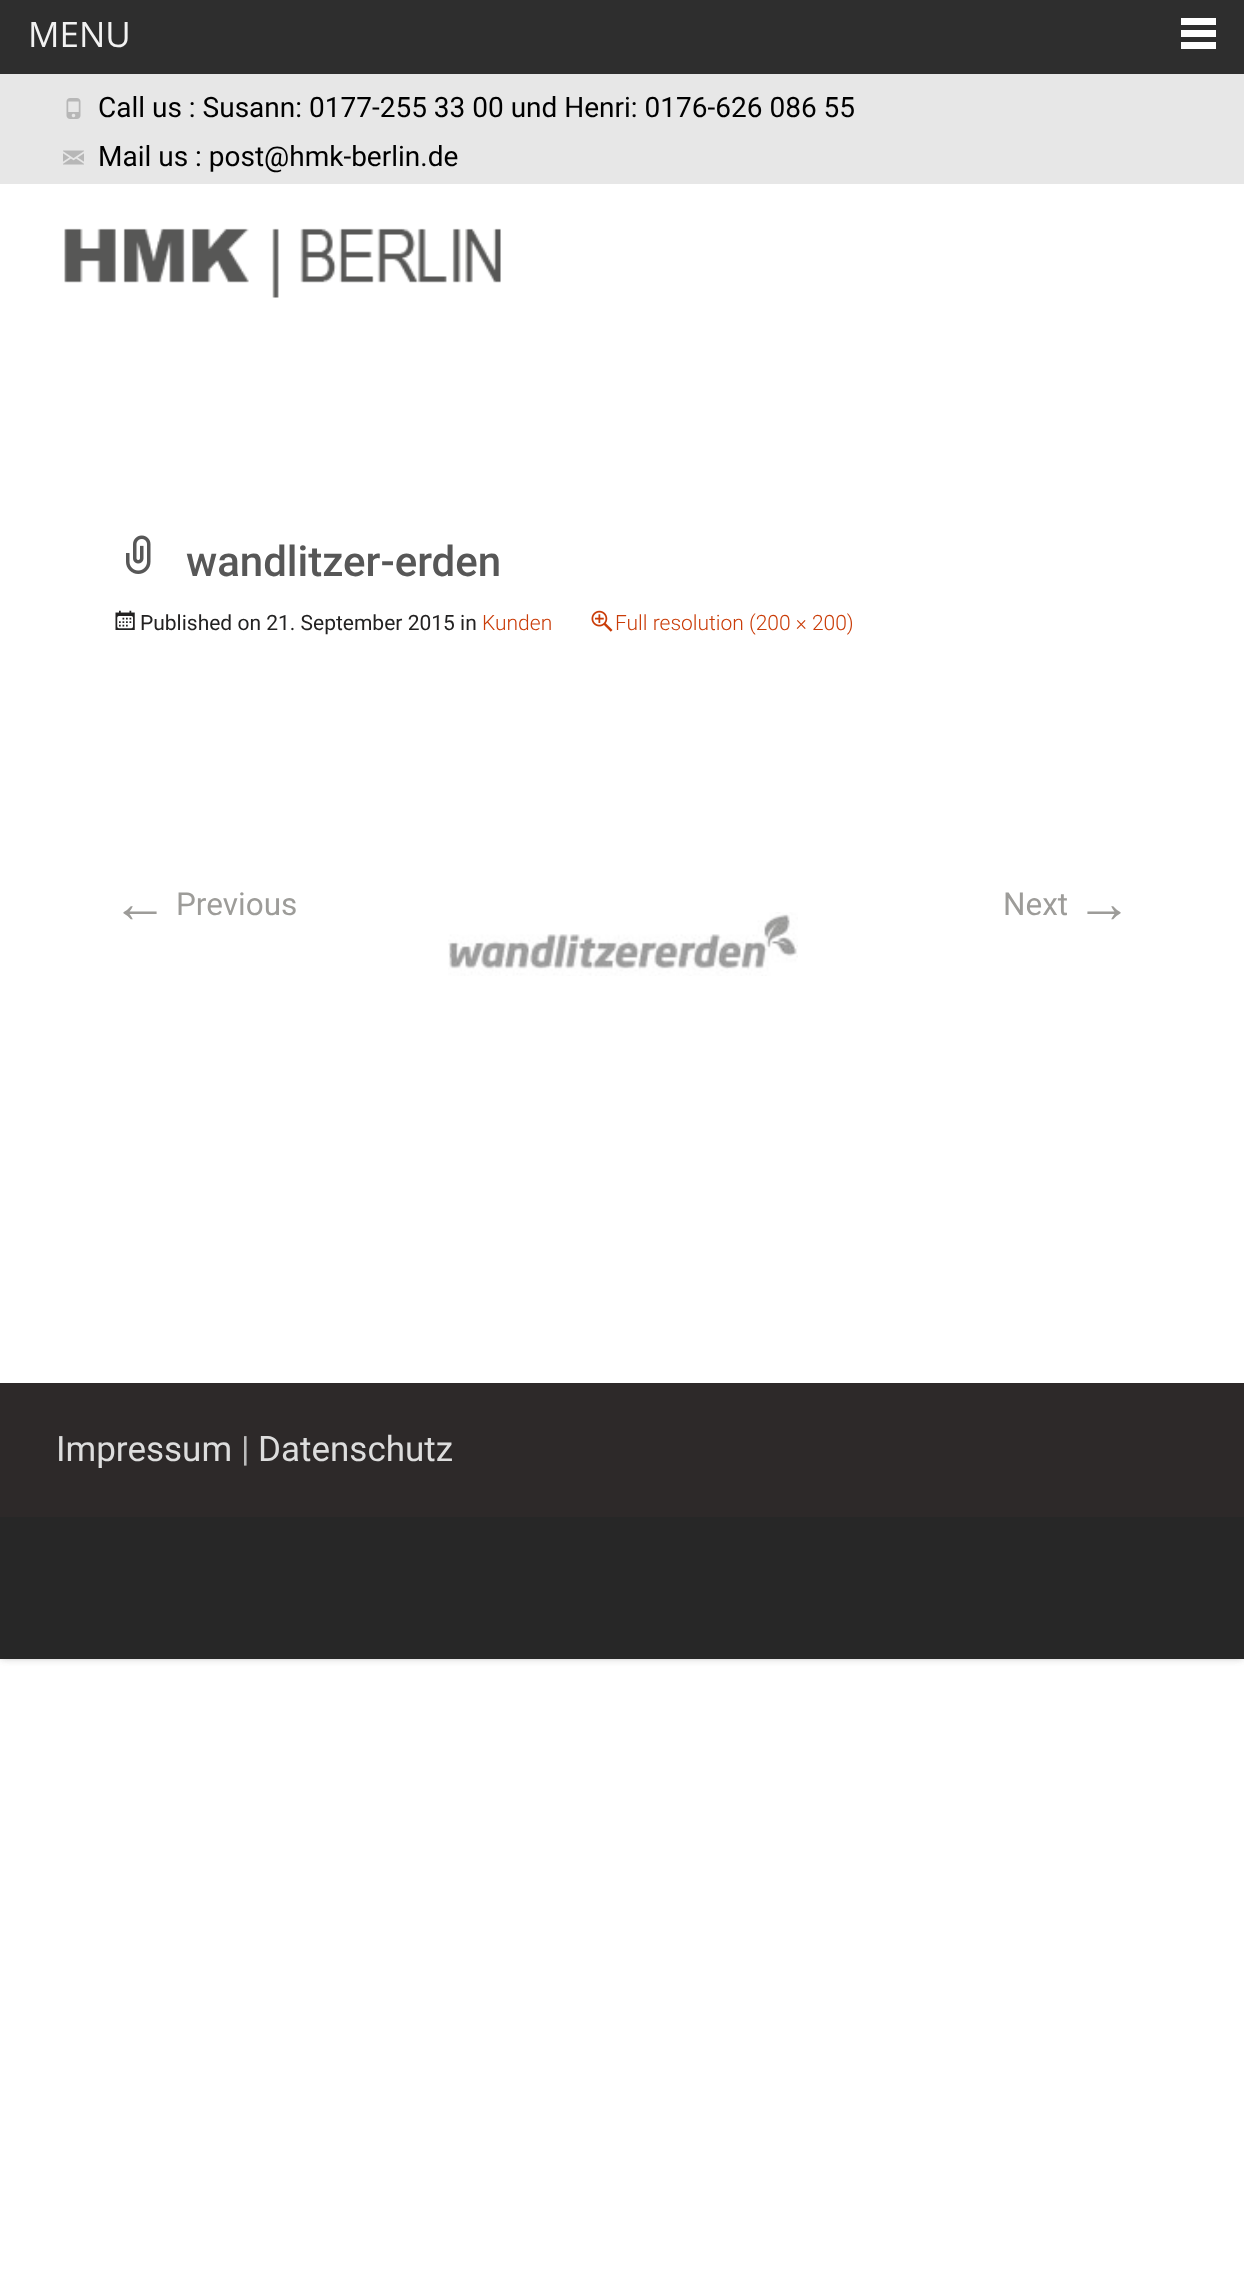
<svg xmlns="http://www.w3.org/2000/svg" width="1244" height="2276">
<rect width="100%" height="100%" fill="#fff"/>
<rect y="74" width="1244" height="1585" rx="4" fill="#0000001a" filter="blur(3.5px)"/>
<rect y="74" width="1244" height="1585" rx="4" fill="#0000001a" filter="blur(3.5px)"/>
<rect width="1244" height="74" fill="#2e2e2e"/>
<text x="28" y="47" style="font-family:Open Sans;font-size:35px;fill:#f2f2f2">MENU</text>
<rect x="1181" y="18" width="35" height="7" fill="#fff"/>
<rect x="1181" y="30" width="35" height="7" fill="#fff"/>
<rect x="1181" y="42" width="35" height="7" fill="#fff"/>
<rect y="184" width="1244" height="1199" fill="#fff"/>
<rect y="74" width="1244" height="110" fill="#e7e7e7"/>
<image x="66" y="98" width="15" height="21" href="media/1.png"/>
<text x="98" y="117" style="font-family:Roboto;font-size:28px;fill:#000">Call us : Susann: 0177-255 33 00 und Henri: 0176-626 086 55</text>
<image x="63" y="150" width="21" height="15" href="media/2.png"/>
<text x="98" y="166" style="font-family:Roboto;font-size:28px;fill:#000">Mail us : post@hmk-berlin.de</text>
<image x="64" y="228" width="437" height="70" href="media/3.png"/>
<image x="126" y="535" width="25" height="39" href="media/4.png"/>
<text x="186" y="576" style="font-family:Roboto;font-size:42px;font-weight:500;fill:#575757">wandlitzer-erden</text>
<image x="115" y="610" width="20" height="20" href="media/5.png"/>
<text x="140" y="630" style="font-family:Roboto;font-size:21px;fill:#232222">Published on 21. September 2015 in</text>
<text x="482" y="630" style="font-family:Roboto;font-size:21px;font-weight:300;fill:#ca3c08">Kunden</text>
<image x="591" y="610" width="22" height="22" href="media/6.png"/>
<text x="615" y="630" style="font-family:Roboto;font-size:21px;font-weight:300;fill:#ca3c08">Full resolution (200 × 200)</text>
<text x="112" y="922" style="font-family:Liberation Sans;font-size:56px;fill:#9d9c99">←</text>
<text x="176" y="915" style="font-family:Roboto;font-size:31.5px;fill:#9d9c99">Previous</text>
<text x="1003" y="915" style="font-family:Roboto;font-size:31.5px;fill:#9d9c99">Next</text>
<text x="1076" y="922" style="font-family:Liberation Sans;font-size:56px;fill:#9d9c99">→</text>
<image x="448" y="912" width="350" height="64" href="media/7.png"/>
<rect y="1517" width="1244" height="142" fill="#272727"/>
<rect y="1383" width="1244" height="134" fill="#2d2929"/>
<text x="56" y="1461" style="font-family:Roboto;font-size:35px;fill:#ddd">Impressum</text>
<text x="241" y="1461" style="font-family:Roboto;font-size:35px;fill:#bbb">|</text>
<text x="258" y="1461" style="font-family:Roboto;font-size:35px;fill:#ddd">Datenschutz</text>
</svg>
